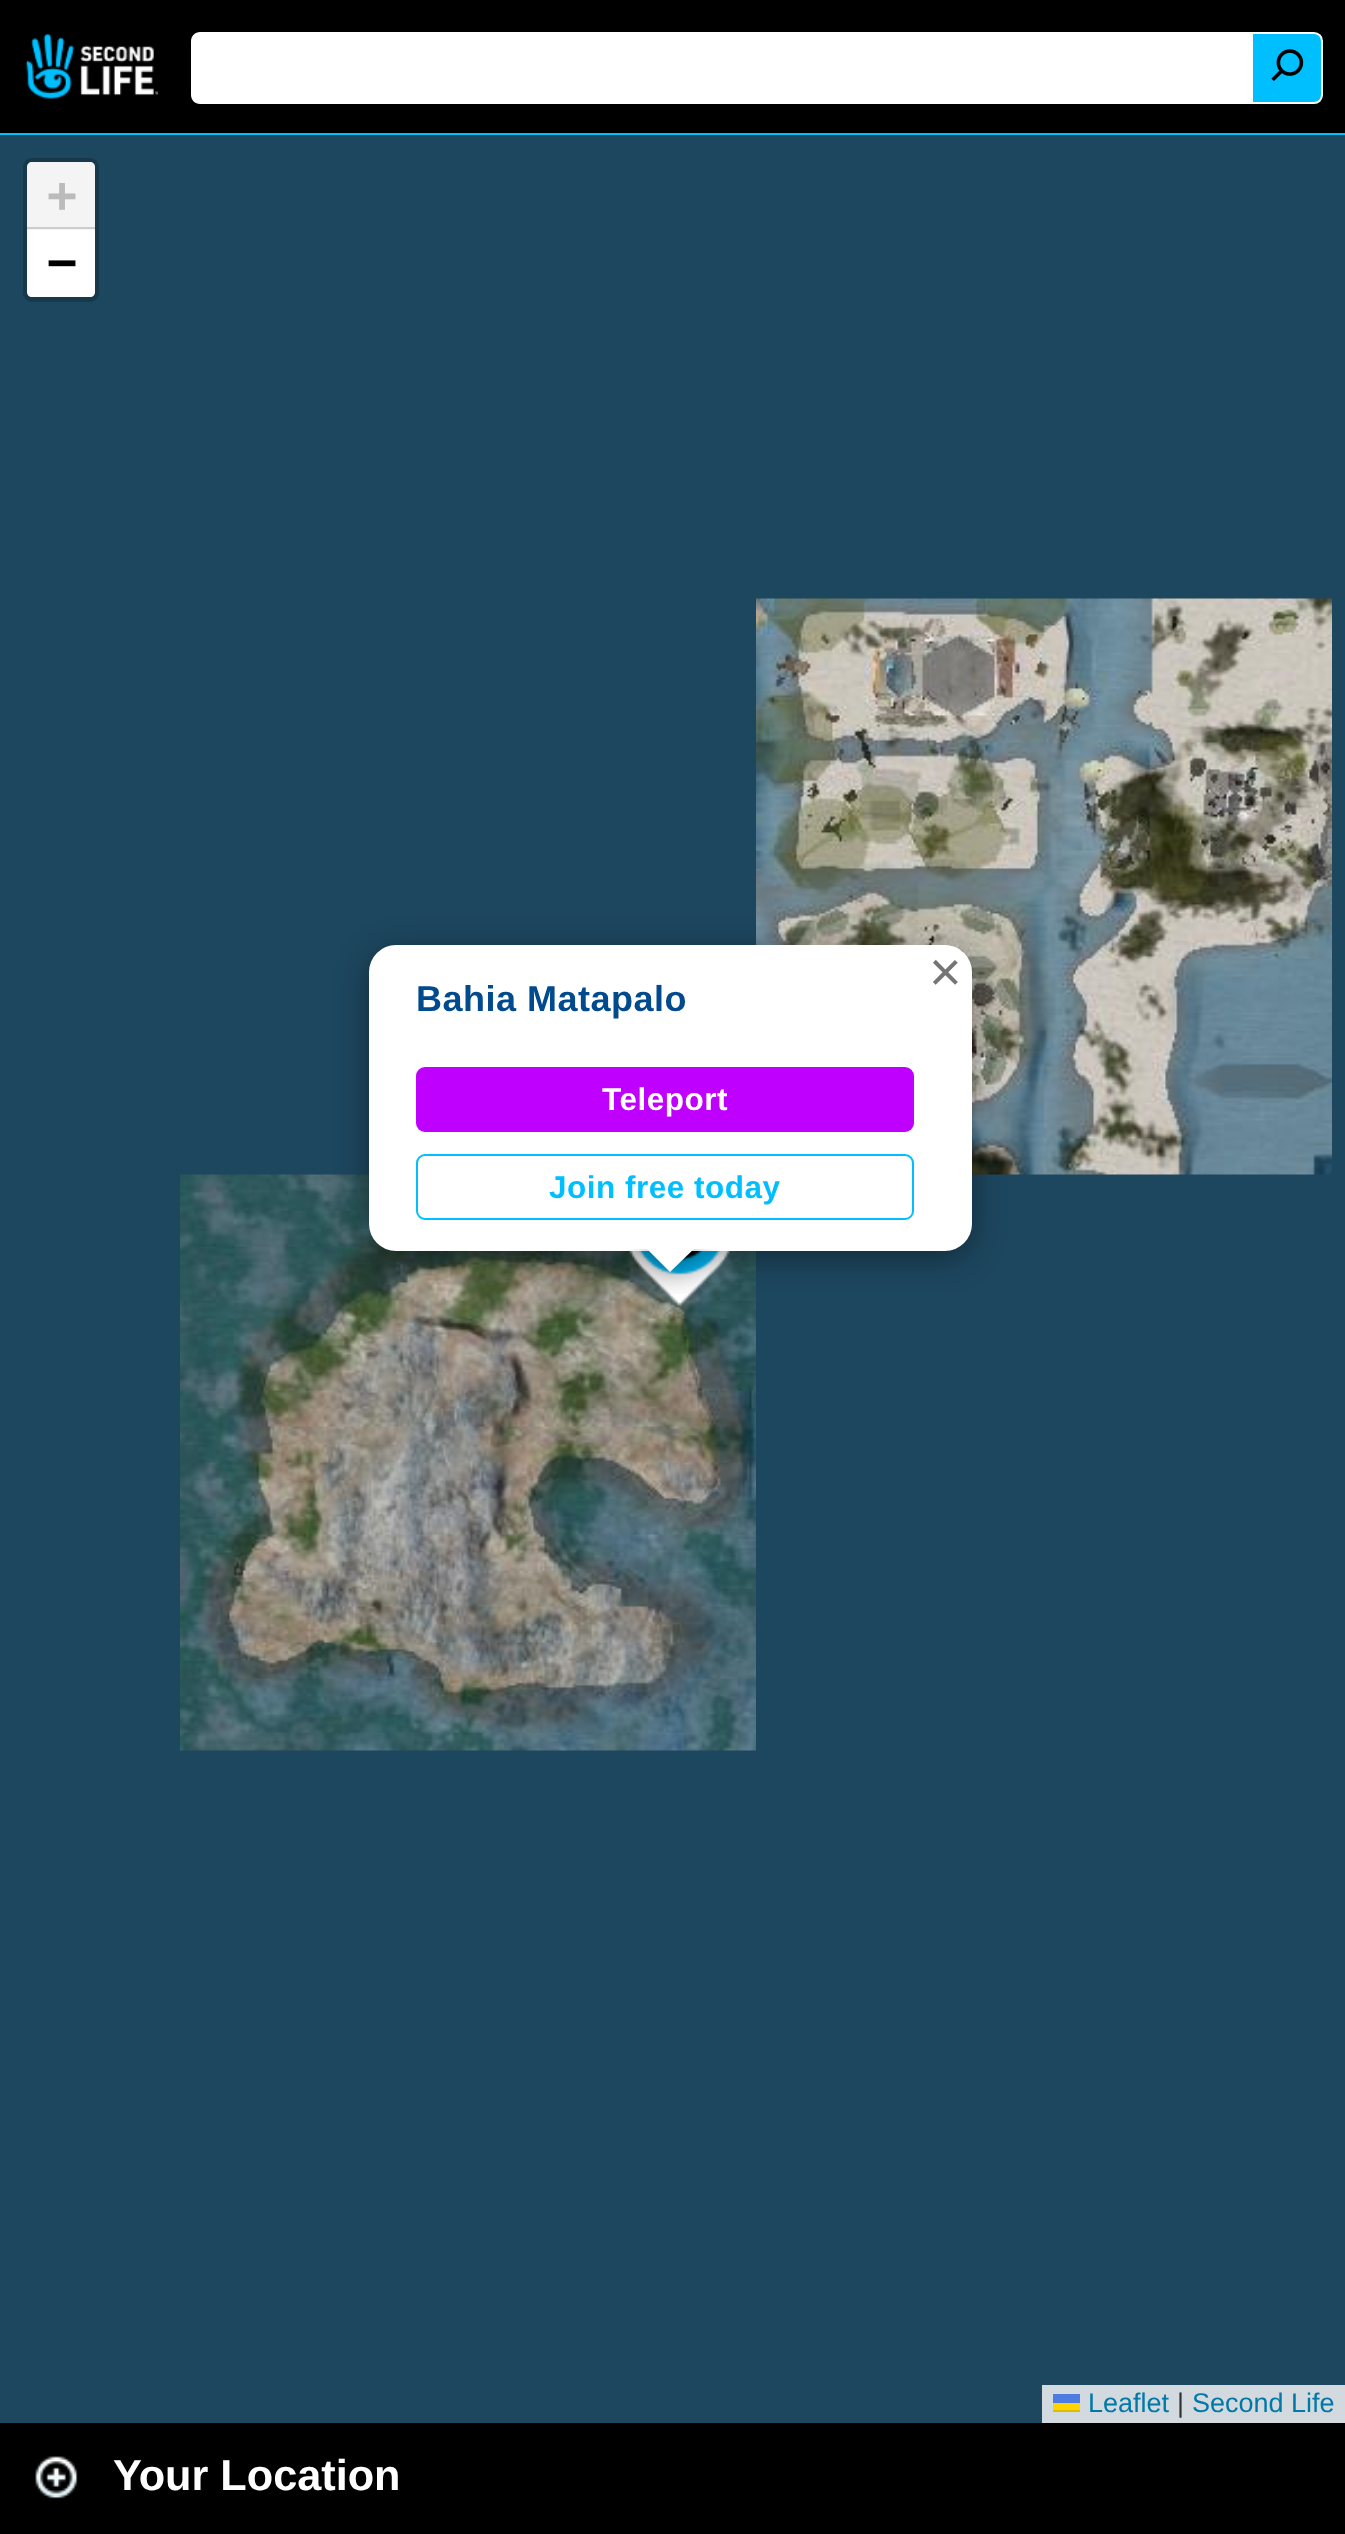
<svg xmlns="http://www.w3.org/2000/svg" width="1345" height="2534">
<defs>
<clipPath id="clip1"><rect x="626" y="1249" width="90" height="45"/></clipPath>
<clipPath id="clip2"><rect x="626" y="1249" width="90" height="45"/></clipPath>
</defs>
<rect width="100%" height="100%" fill="#000"/>
<rect y="133" width="1345" height="2" fill="#00bfff"/>
<image x="26" y="34" width="133" height="65" href="media/1.png"/>
<path d="M200 32h1060v72h-1060c-5 0-9-4-9-9v-54c0-5 4-9 9-9z" fill="#fff"/>
<path d="M1252 33h62c4.5 0 8 3.5 8 8v54c0 4.5-3.5 8-8 8h-62z" fill="#00bfff" stroke="#fff" stroke-width="2"/>
<image x="1271" y="49" width="33" height="32" href="media/2.png"/>
<rect y="135" width="1345" height="2288" fill="#1d475f"/>
<rect x="25.5" y="160.5" width="71" height="139" rx="6.5" fill="none" stroke="#17394c" stroke-width="5"/>
<path d="M32 162h58c3 0 5 2 5 5v63h-68v-63c0-3 2-5 5-5z" fill="#f4f4f4"/>
<rect x="27" y="227" width="68" height="2" fill="#ccc"/>
<text x="47" y="212" style="font-family:DejaVu Sans Mono;font-size:50px;font-weight:bold;fill:#bbb">+</text>
<path d="M27 230h68v62c0 3-2 5-5 5h-58c-3 0-5-2-5-5z" fill="#fff"/>
<text x="47" y="279" style="font-family:DejaVu Sans Mono;font-size:50px;font-weight:bold;fill:#000">−</text>
<rect x="1042" y="2385" width="303" height="38" fill="#d2dadf"/>
<text x="1088" y="2412" style="font-family:Liberation Sans;font-size:27px;fill:#0078a8">Leaflet</text>
<rect x="1053" y="2394" width="27" height="9" fill="#4c7be1"/>
<rect x="1053" y="2403" width="27" height="7" fill="#ffd500"/>
<rect x="1053" y="2410" width="27" height="2" fill="#e0bc00"/>
<text x="1177" y="2412" style="font-family:Liberation Sans;font-size:27px;fill:#333">|</text>
<text x="1192" y="2412" style="font-family:Liberation Sans;font-size:27px;fill:#0078a8">Second Life</text>
<image x="756" y="598" width="576" height="577" href="media/3.png"/>
<image x="180" y="1174" width="576" height="577" href="media/4.png"/>
<image x="629" y="1251" width="102" height="55" href="media/5.png"/>
<rect x="369" y="952" width="603" height="306" rx="27" fill="#00000066" filter="blur(16px)"/>
<rect x="369" y="945" width="603" height="306" rx="27" fill="#fff"/>
<text x="929" y="991" style="font-family:Liberation Sans;font-size:56px;fill:#757575">×</text>
<text x="416" y="1011" style="font-family:Liberation Sans;font-size:36px;font-weight:bold;letter-spacing:0.5px;fill:#014a8e">Bahia Matapalo</text>
<rect x="416" y="1067" width="498" height="65" rx="9" fill="#bf00ff"/>
<text x="602" y="1110" style="font-family:Liberation Sans;font-size:31.5px;font-weight:bold;letter-spacing:0.5px;fill:#fff">Teleport</text>
<rect x="417" y="1155" width="496" height="64" rx="8" fill="none" stroke="#00bfff" stroke-width="2"/>
<text x="549" y="1198" style="font-family:Liberation Sans;font-size:31.5px;font-weight:bold;letter-spacing:0.5px;fill:#00bfff">Join free today</text>
<g clip-path="url(#clip1)">
<rect x="653" y="1233" width="38" height="38" fill="#00000066" filter="blur(16px)"/>
</g>
<g clip-path="url(#clip2)">
<path d="M670 1218l28 27l-28 27l-27-27z" fill="#fff"/>
</g>
<image x="35" y="2456" width="43" height="43" href="media/6.png"/>
<text x="113" y="2490" style="font-family:Liberation Sans;font-size:43.25px;font-weight:bold;fill:#fff">Your Location</text>
</svg>
